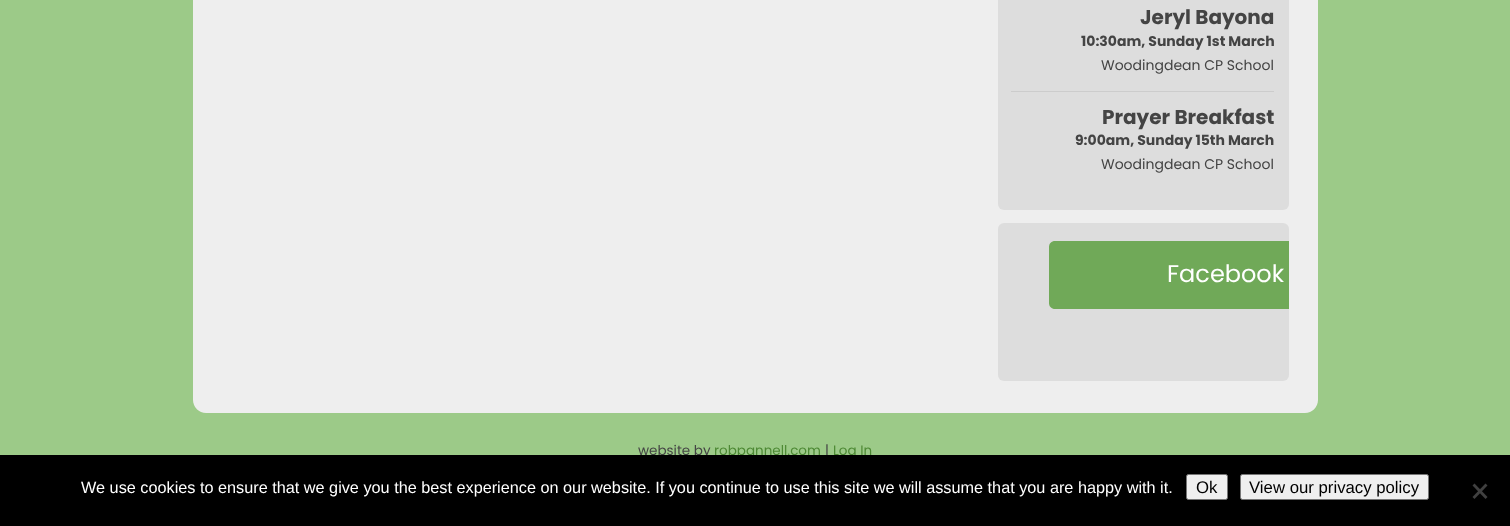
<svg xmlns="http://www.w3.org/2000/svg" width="1510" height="526">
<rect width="100%" height="100%" fill="#9cca88"/>
<path d="M193-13h1125v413c0 7-6 13-13 13h-1099c-7 0-13-6-13-13z" fill="#eee"/>
<rect x="998" y="-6" width="291" height="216" rx="6" fill="#ddd"/>
<rect x="1011" y="91" width="263" height="1" fill="#ccc"/>
<text x="1140" y="24" style="font-family:Poppins;font-size:20px;font-weight:bold;fill:#444">Jeryl Bayona</text>
<text x="1081" y="46" style="font-family:Poppins;font-size:14px;font-weight:bold;fill:#444">10:30am, Sunday 1st March</text>
<text x="1101" y="70" style="font-family:Poppins;font-size:14px;fill:#444">Woodingdean CP School</text>
<text x="1102" y="124" style="font-family:Poppins;font-size:20px;font-weight:bold;fill:#444">Prayer Breakfast</text>
<text x="1075" y="145" style="font-family:Poppins;font-size:14px;font-weight:bold;fill:#444">9:00am, Sunday 15th March</text>
<text x="1101" y="169" style="font-family:Poppins;font-size:14px;fill:#444">Woodingdean CP School</text>
<rect x="998" y="223" width="291" height="158" rx="6" fill="#ddd"/>
<path d="M1055 241h234v68h-234c-3.5 0-6-2.5-6-6v-56c0-3.5 2.5-6 6-6z" fill="#70a958"/>
<text x="1167" y="282" style="font-family:Poppins;font-size:24px;fill:#fff">Facebook</text>
<text x="638" y="455" style="font-family:Poppins;font-size:13.5px;fill:#444">website by</text>
<text x="714" y="455" style="font-family:Poppins;font-size:13.5px;fill:#4d8934">robpannell.com</text>
<text x="825" y="455" style="font-family:Poppins;font-size:13.5px;fill:#444">|</text>
<text x="833" y="455" style="font-family:Poppins;font-size:13.5px;fill:#4d8934">Log In</text>
<rect y="455" width="1510" height="71" fill="#000"/>
<text x="81" y="493" style="font-family:Liberation Sans;font-size:16.25px;fill:#fff">We use cookies to ensure that we give you the best experience on our website. If you continue to use this site we will assume that you are happy with it.</text>
<rect x="1186.5" y="474.5" width="41" height="25" rx="2" fill="#efefef" stroke="#767676"/>
<text x="1196" y="493" style="font-family:Liberation Sans;font-size:16.75px;fill:#000">Ok</text>
<rect x="1240.5" y="474.5" width="188" height="25" rx="2" fill="#efefef" stroke="#767676"/>
<text x="1249" y="493" style="font-family:Liberation Sans;font-size:16.75px;fill:#000">View our privacy policy</text>
<path d="M1485.5 483.5l2 2l-13 13.5l-2-2z" fill="#404040"/>
<path d="M1472.5 485.5l2-2l13 13.5l-2 2z" fill="#404040"/>
</svg>
